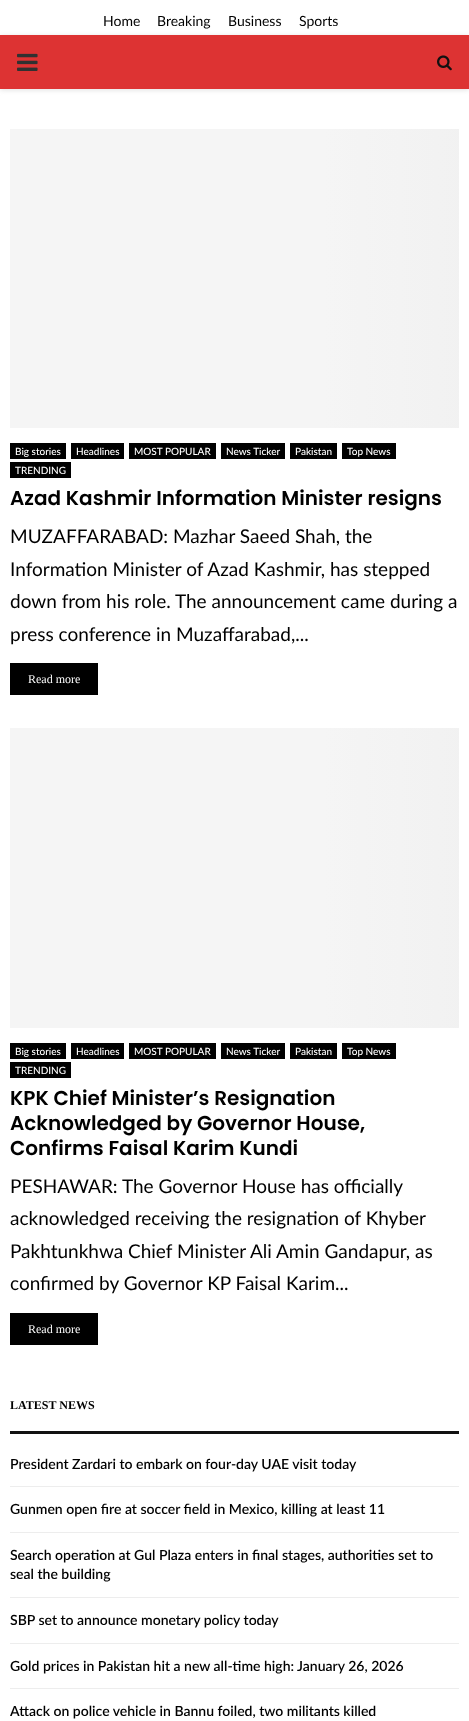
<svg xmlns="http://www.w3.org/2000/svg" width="469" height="1721">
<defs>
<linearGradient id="g1" gradientUnits="userSpaceOnUse" x1="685" y1="279" x2="-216" y2="279"><stop offset="0" stop-color="#f5f5f5"/><stop offset="0.15" stop-color="#efefef"/><stop offset="0.4" stop-color="#f5f5f5"/><stop offset="1" stop-color="#f5f5f5"/></linearGradient>
<linearGradient id="g2" gradientUnits="userSpaceOnUse" x1="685" y1="878" x2="-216" y2="878"><stop offset="0" stop-color="#f5f5f5"/><stop offset="0.15" stop-color="#efefef"/><stop offset="0.4" stop-color="#f5f5f5"/><stop offset="1" stop-color="#f5f5f5"/></linearGradient>
</defs>
<rect width="100%" height="100%" fill="#fff"/>
<text x="103" y="26" style="font-family:Lato;font-size:14px;fill:#000">Home</text>
<text x="157" y="26" style="font-family:Lato;font-size:14px;fill:#000">Breaking</text>
<text x="228" y="26" style="font-family:Lato;font-size:14px;fill:#000">Business</text>
<text x="299" y="26" style="font-family:Lato;font-size:14px;fill:#000">Sports</text>
<rect y="36" width="469" height="54" fill="#bebebe75" filter="blur(2.5px)"/>
<rect y="35" width="469" height="54" fill="#d33"/>
<image x="17" y="53" width="21" height="18" href="media/1.png"/>
<image x="437" y="55" width="15" height="16" href="media/2.png"/>
<rect x="10" y="129" width="449" height="299" fill="url(#g1)"/>
<rect x="10" y="443" width="56" height="16" fill="#000"/>
<text x="15" y="455" style="font-family:Lato;font-size:10px;font-weight:500;fill:#fff">Big stories</text>
<rect x="71" y="443" width="53" height="16" fill="#000"/>
<text x="76" y="455" style="font-family:Lato;font-size:10px;font-weight:500;fill:#fff">Headlines</text>
<rect x="129" y="443" width="87" height="16" fill="#000"/>
<text x="134" y="455" style="font-family:Lato;font-size:10px;font-weight:500;fill:#fff">MOST POPULAR</text>
<rect x="221" y="443" width="64" height="16" fill="#000"/>
<text x="226" y="455" style="font-family:Lato;font-size:10px;font-weight:500;fill:#fff">News Ticker</text>
<rect x="290" y="443" width="47" height="16" fill="#000"/>
<text x="295" y="455" style="font-family:Lato;font-size:10px;font-weight:500;fill:#fff">Pakistan</text>
<rect x="342" y="443" width="54" height="16" fill="#000"/>
<text x="347" y="455" style="font-family:Lato;font-size:10px;font-weight:500;fill:#fff">Top News</text>
<rect x="10" y="462" width="61" height="16" fill="#000"/>
<text x="15" y="474" style="font-family:Lato;font-size:10px;font-weight:500;fill:#fff">TRENDING</text>
<text x="10" y="505" style="font-family:Poppins;font-size:20px;font-weight:600;fill:#000">Azad Kashmir Information Minister resigns</text>
<text x="10" y="543" style="font-family:Lato;font-size:19px;fill:#000">MUZAFFARABAD: Mazhar Saeed Shah, the</text>
<text x="10" y="576" style="font-family:Lato;font-size:19px;fill:#000">Information Minister of Azad Kashmir, has stepped</text>
<text x="10" y="608" style="font-family:Lato;font-size:19px;fill:#000">down from his role. The announcement came during a</text>
<text x="10" y="641" style="font-family:Lato;font-size:19px;fill:#000">press conference in Muzaffarabad,...</text>
<rect x="10" y="663" width="88" height="32" fill="#000"/>
<text x="28" y="683" style="font-family:Liberation Serif;font-size:12px;fill:#fff">Read more</text>
<rect x="10" y="728" width="449" height="300" fill="url(#g2)"/>
<rect x="10" y="1043" width="56" height="16" fill="#000"/>
<text x="15" y="1055" style="font-family:Lato;font-size:10px;font-weight:500;fill:#fff">Big stories</text>
<rect x="71" y="1043" width="53" height="16" fill="#000"/>
<text x="76" y="1055" style="font-family:Lato;font-size:10px;font-weight:500;fill:#fff">Headlines</text>
<rect x="129" y="1043" width="87" height="16" fill="#000"/>
<text x="134" y="1055" style="font-family:Lato;font-size:10px;font-weight:500;fill:#fff">MOST POPULAR</text>
<rect x="221" y="1043" width="64" height="16" fill="#000"/>
<text x="226" y="1055" style="font-family:Lato;font-size:10px;font-weight:500;fill:#fff">News Ticker</text>
<rect x="290" y="1043" width="47" height="16" fill="#000"/>
<text x="295" y="1055" style="font-family:Lato;font-size:10px;font-weight:500;fill:#fff">Pakistan</text>
<rect x="342" y="1043" width="54" height="16" fill="#000"/>
<text x="347" y="1055" style="font-family:Lato;font-size:10px;font-weight:500;fill:#fff">Top News</text>
<rect x="10" y="1062" width="61" height="16" fill="#000"/>
<text x="15" y="1074" style="font-family:Lato;font-size:10px;font-weight:500;fill:#fff">TRENDING</text>
<text x="10" y="1105" style="font-family:Poppins;font-size:20px;font-weight:600;fill:#000">KPK Chief Minister’s Resignation</text>
<text x="10" y="1130" style="font-family:Poppins;font-size:20px;font-weight:600;fill:#000">Acknowledged by Governor House,</text>
<text x="10" y="1155" style="font-family:Poppins;font-size:20px;font-weight:600;fill:#000">Confirms Faisal Karim Kundi</text>
<text x="10" y="1193" style="font-family:Lato;font-size:19px;fill:#000">PESHAWAR: The Governor House has officially</text>
<text x="10" y="1225" style="font-family:Lato;font-size:19px;fill:#000">acknowledged receiving the resignation of Khyber</text>
<text x="10" y="1258" style="font-family:Lato;font-size:19px;fill:#000">Pakhtunkhwa Chief Minister Ali Amin Gandapur, as</text>
<text x="10" y="1290" style="font-family:Lato;font-size:19px;fill:#000">confirmed by Governor KP Faisal Karim...</text>
<rect x="10" y="1313" width="88" height="32" fill="#000"/>
<text x="28" y="1333" style="font-family:Liberation Serif;font-size:12px;fill:#fff">Read more</text>
<rect x="10" y="1431" width="449" height="3" fill="#111"/>
<text x="10" y="1409" style="font-family:Liberation Serif;font-size:12px;font-weight:bold;fill:#000">LATEST NEWS</text>
<rect x="10" y="1486" width="449" height="1" fill="#ededed"/>
<text x="10" y="1469" style="font-family:Lato;font-size:14px;font-weight:600;fill:#000">President Zardari to embark on four-day UAE visit today</text>
<rect x="10" y="1532" width="449" height="1" fill="#ededed"/>
<text x="10" y="1514" style="font-family:Lato;font-size:14px;font-weight:600;fill:#000">Gunmen open fire at soccer field in Mexico, killing at least 11</text>
<rect x="10" y="1597" width="449" height="1" fill="#ededed"/>
<text x="10" y="1560" style="font-family:Lato;font-size:14px;font-weight:600;fill:#000">Search operation at Gul Plaza enters in final stages, authorities set to</text>
<text x="10" y="1579" style="font-family:Lato;font-size:14px;font-weight:600;fill:#000">seal the building</text>
<rect x="10" y="1643" width="449" height="1" fill="#ededed"/>
<text x="10" y="1625" style="font-family:Lato;font-size:14px;font-weight:600;fill:#000">SBP set to announce monetary policy today</text>
<rect x="10" y="1688" width="449" height="1" fill="#ededed"/>
<text x="10" y="1671" style="font-family:Lato;font-size:14px;font-weight:600;fill:#000">Gold prices in Pakistan hit a new all-time high: January 26, 2026</text>
<text x="10" y="1716" style="font-family:Lato;font-size:14px;font-weight:600;fill:#000">Attack on police vehicle in Bannu foiled, two militants killed</text>
</svg>
